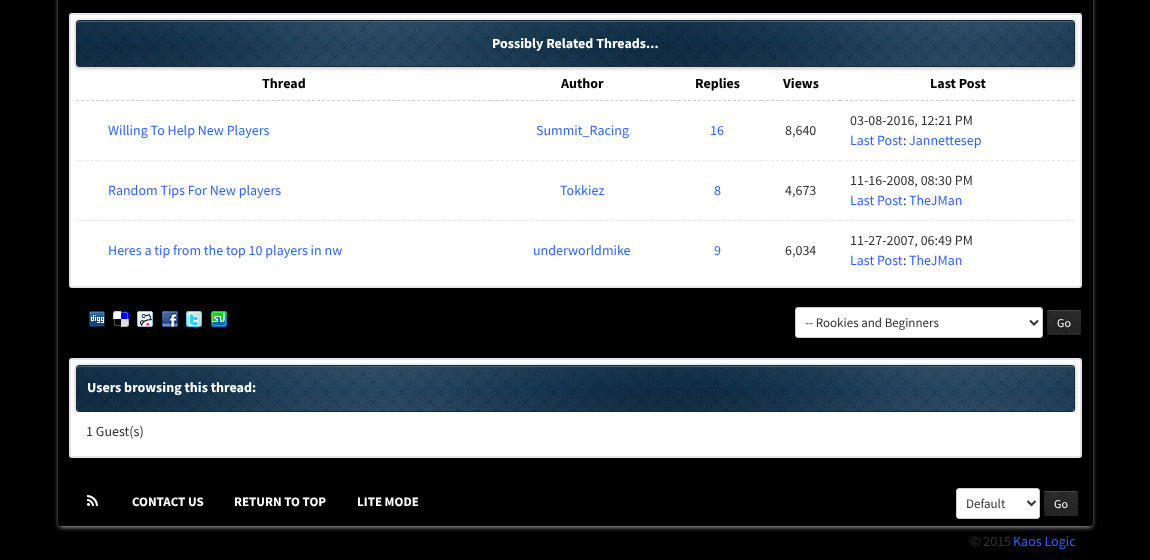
<svg xmlns="http://www.w3.org/2000/svg" width="1150" height="560">
<defs>
<clipPath id="clip1"><path d="M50 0h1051v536h-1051zm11-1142h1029c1.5 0 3 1.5 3 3v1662c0 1.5-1.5 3-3 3h-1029c-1.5 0-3-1.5-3-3v-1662c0-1.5 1.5-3 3-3z" clip-rule="evenodd"/></clipPath>
</defs>
<rect width="100%" height="100%" fill="#000"/>
<g clip-path="url(#clip1)">
<rect x="59" y="-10" width="1033" height="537" rx="2" fill="#adaeaf" filter="blur(2.5px)"/>
</g>
<rect x="58.5" y="-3.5" width="1034" height="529" rx="2.5" fill="#000000cc" stroke="#000"/>
<rect x="70" y="14" width="1011" height="273" rx="2" fill="#fff" stroke="#e4e6e9" stroke-width="2"/>
<rect x="76" y="21" width="999" height="47" rx="3" fill="#0000004d" filter="blur(2px)"/>
<image x="77" y="21" width="997" height="45" href="media/1.png"/>
<path d="M79 22h993c1 0 2 1 2 2v-1c0-1-1-2-2-2h-993c-1 0-2 1-2 2v1c0-1 1-2 2-2z" fill="#3d6485"/>
<rect x="76.5" y="20.5" width="998" height="46" rx="2.5" fill="none" stroke="#1a2936"/>
<text x="492" y="48" style="font-family:Source Sans Pro;font-size:14px;font-weight:bold;fill:#fff">Possibly Related Threads...</text>
<rect x="76" y="67" width="999" height="1" fill="#ddd"/>
<path d="M76 100.5h415" fill="none" stroke="#ccc" stroke-dasharray="3 2.02"/>
<text x="262" y="88" style="font-family:Source Sans Pro;font-size:14px;font-weight:bold;fill:#000">Thread</text>
<path d="M491 100.5h182" fill="none" stroke="#ccc" stroke-dasharray="3 1.97"/>
<text x="561" y="88" style="font-family:Source Sans Pro;font-size:14px;font-weight:bold;fill:#000">Author</text>
<path d="M673 100.5h88" fill="none" stroke="#ccc" stroke-dasharray="3 2"/>
<text x="695" y="88" style="font-family:Source Sans Pro;font-size:14px;font-weight:bold;fill:#000">Replies</text>
<path d="M761 100.5h79" fill="none" stroke="#ccc" stroke-dasharray="3 2.07"/>
<text x="783" y="88" style="font-family:Source Sans Pro;font-size:14px;font-weight:bold;fill:#000">Views</text>
<path d="M840 100.5h235" fill="none" stroke="#ccc" stroke-dasharray="3 2.04"/>
<text x="930" y="88" style="font-family:Source Sans Pro;font-size:14px;font-weight:bold;fill:#000">Last Post</text>
<path d="M98 160.5h393" fill="none" stroke="#e7e6e6" stroke-dasharray="3 2"/>
<text x="108" y="135" style="font-family:Source Sans Pro;font-size:14px;fill:#2e64fe">Willing To Help New Players</text>
<path d="M491 160.5h182" fill="none" stroke="#e7e6e6" stroke-dasharray="3 1.97"/>
<text x="536" y="135" style="font-family:Source Sans Pro;font-size:14px;fill:#2e64fe">Summit_Racing</text>
<path d="M673 160.5h88" fill="none" stroke="#e7e6e6" stroke-dasharray="3 2"/>
<text x="710" y="135" style="font-family:Source Sans Pro;font-size:14px;fill:#2e64fe">16</text>
<path d="M761 160.5h79" fill="none" stroke="#e7e6e6" stroke-dasharray="3 2.07"/>
<text x="785" y="135" style="font-family:Source Sans Pro;font-size:14px;fill:#333">8,640</text>
<path d="M840 160.5h235" fill="none" stroke="#e7e6e6" stroke-dasharray="3 2.04"/>
<text x="850" y="125" style="font-family:Source Sans Pro;font-size:14px;fill:#333">03-08-2016, 12:21 PM</text>
<text x="850" y="145" style="font-family:Source Sans Pro;font-size:14px;fill:#2e64fe">Last Post</text>
<text x="903" y="145" style="font-family:Source Sans Pro;font-size:14px;fill:#333">:</text>
<text x="909" y="145" style="font-family:Source Sans Pro;font-size:14px;fill:#2e64fe">Jannettesep</text>
<path d="M76 160.5h22" fill="none" stroke="#e7e6e6" stroke-dasharray="3 1.75"/>
<path d="M98 220.5h393" fill="none" stroke="#e7e6e6" stroke-dasharray="3 2"/>
<text x="108" y="195" style="font-family:Source Sans Pro;font-size:14px;fill:#2e64fe">Random Tips For New players</text>
<path d="M491 220.5h182" fill="none" stroke="#e7e6e6" stroke-dasharray="3 1.97"/>
<text x="560" y="195" style="font-family:Source Sans Pro;font-size:14px;fill:#2e64fe">Tokkiez</text>
<path d="M673 220.5h88" fill="none" stroke="#e7e6e6" stroke-dasharray="3 2"/>
<text x="714" y="195" style="font-family:Source Sans Pro;font-size:14px;fill:#2e64fe">8</text>
<path d="M761 220.5h79" fill="none" stroke="#e7e6e6" stroke-dasharray="3 2.07"/>
<text x="785" y="195" style="font-family:Source Sans Pro;font-size:14px;fill:#333">4,673</text>
<path d="M840 220.5h235" fill="none" stroke="#e7e6e6" stroke-dasharray="3 2.04"/>
<text x="850" y="185" style="font-family:Source Sans Pro;font-size:14px;fill:#333">11-16-2008, 08:30 PM</text>
<text x="850" y="205" style="font-family:Source Sans Pro;font-size:14px;fill:#2e64fe">Last Post</text>
<text x="903" y="205" style="font-family:Source Sans Pro;font-size:14px;fill:#333">:</text>
<text x="909" y="205" style="font-family:Source Sans Pro;font-size:14px;fill:#2e64fe">TheJMan</text>
<path d="M76 220.5h22" fill="none" stroke="#e7e6e6" stroke-dasharray="3 1.75"/>
<text x="108" y="255" style="font-family:Source Sans Pro;font-size:14px;fill:#2e64fe">Heres a tip from the top 10 players in nw</text>
<text x="533" y="255" style="font-family:Source Sans Pro;font-size:14px;fill:#2e64fe">underworldmike</text>
<text x="714" y="255" style="font-family:Source Sans Pro;font-size:14px;fill:#2e64fe">9</text>
<text x="785" y="255" style="font-family:Source Sans Pro;font-size:14px;fill:#333">6,034</text>
<text x="850" y="245" style="font-family:Source Sans Pro;font-size:14px;fill:#333">11-27-2007, 06:49 PM</text>
<text x="850" y="265" style="font-family:Source Sans Pro;font-size:14px;fill:#2e64fe">Last Post</text>
<text x="903" y="265" style="font-family:Source Sans Pro;font-size:14px;fill:#333">:</text>
<text x="909" y="265" style="font-family:Source Sans Pro;font-size:14px;fill:#2e64fe">TheJMan</text>
<image x="89" y="311" width="16" height="16" href="media/2.png"/>
<image x="113" y="311" width="16" height="16" href="media/3.png"/>
<image x="137" y="311" width="16" height="16" href="media/4.png"/>
<image x="162" y="311" width="16" height="16" href="media/5.png"/>
<image x="186" y="311" width="16" height="16" href="media/6.png"/>
<image x="211" y="311" width="16" height="16" href="media/7.png"/>
<rect x="795.5" y="307.5" width="247" height="30" rx="2.5" fill="#fff" stroke="#ccc"/>
<path d="M1030 320.5l4 4l4-4" fill="none" stroke="#333" stroke-width="2"/>
<text x="805" y="327" style="font-family:Source Sans Pro;font-size:13px;fill:#333">-- Rookies and Beginners</text>
<image x="1047" y="310" width="34" height="25" href="media/8.png"/>
<path d="M1048 311h32c1 0 1 0 1 1c0-3.5-3-2-6.5-2h-21c-3.5 0-6.5-1.5-6.5 2c0-1 0-1 1-1z" fill="#ffffff21"/>
<rect x="1046.5" y="309.5" width="35" height="26" rx="1.5" fill="none" stroke="#000"/>
<text x="1057" y="327" style="font-family:Source Sans Pro;font-size:12px;fill:#fff">Go</text>
<rect x="70" y="359" width="1011" height="98" rx="2" fill="#fff" stroke="#e4e6e9" stroke-width="2"/>
<rect x="76" y="366" width="999" height="47" rx="3" fill="#0000004d" filter="blur(2px)"/>
<image x="77" y="366" width="997" height="45" href="media/1.png"/>
<path d="M79 367h993c1 0 2 1 2 2v-1c0-1-1-2-2-2h-993c-1 0-2 1-2 2v1c0-1 1-2 2-2z" fill="#3d6485"/>
<rect x="76.5" y="365.5" width="998" height="46" rx="2.5" fill="none" stroke="#1a2936"/>
<text x="87" y="392" style="font-family:Source Sans Pro;font-size:14px;font-weight:bold;fill:#fff">Users browsing this thread:</text>
<path d="M76 412h999v37c0 1-1 2-2 2h-995c-1 0-2-1-2-2z" fill="#fff"/>
<text x="86" y="436" style="font-family:Source Sans Pro;font-size:14px;fill:#333">1 Guest(s)</text>
<image x="87" y="495" width="11" height="11" href="media/9.png"/>
<text x="132" y="506" style="font-family:Source Sans Pro;font-size:13px;font-weight:bold;fill:#fff">CONTACT US</text>
<text x="234" y="506" style="font-family:Source Sans Pro;font-size:13px;font-weight:bold;fill:#fff">RETURN TO TOP</text>
<text x="357" y="506" style="font-family:Source Sans Pro;font-size:13px;font-weight:bold;fill:#fff">LITE MODE</text>
<rect x="956.5" y="488.5" width="83" height="30" rx="2.5" fill="#fff" stroke="#ccc"/>
<path d="M1027.5 501l4 4l4-4" fill="none" stroke="#333" stroke-width="2"/>
<text x="966" y="508" style="font-family:Source Sans Pro;font-size:13px;fill:#333">Default</text>
<image x="1044" y="491" width="34" height="25" href="media/8.png"/>
<path d="M1045 492h32c1 0 1 0 1 1c0-3.5-3-2-6.5-2h-21c-3.5 0-6.5-1.5-6.5 2c0-1 0-1 1-1z" fill="#ffffff21"/>
<rect x="1043.5" y="490.5" width="35" height="26" rx="1.5" fill="none" stroke="#000"/>
<text x="1054" y="508" style="font-family:Source Sans Pro;font-size:12px;fill:#fff">Go</text>
<text x="970" y="546" style="font-family:Source Sans Pro;font-size:14px;fill:#333">© 2015</text>
<text x="1013" y="546" style="font-family:Source Sans Pro;font-size:14px;fill:#2e64fe">Kaos Logic</text>
</svg>
